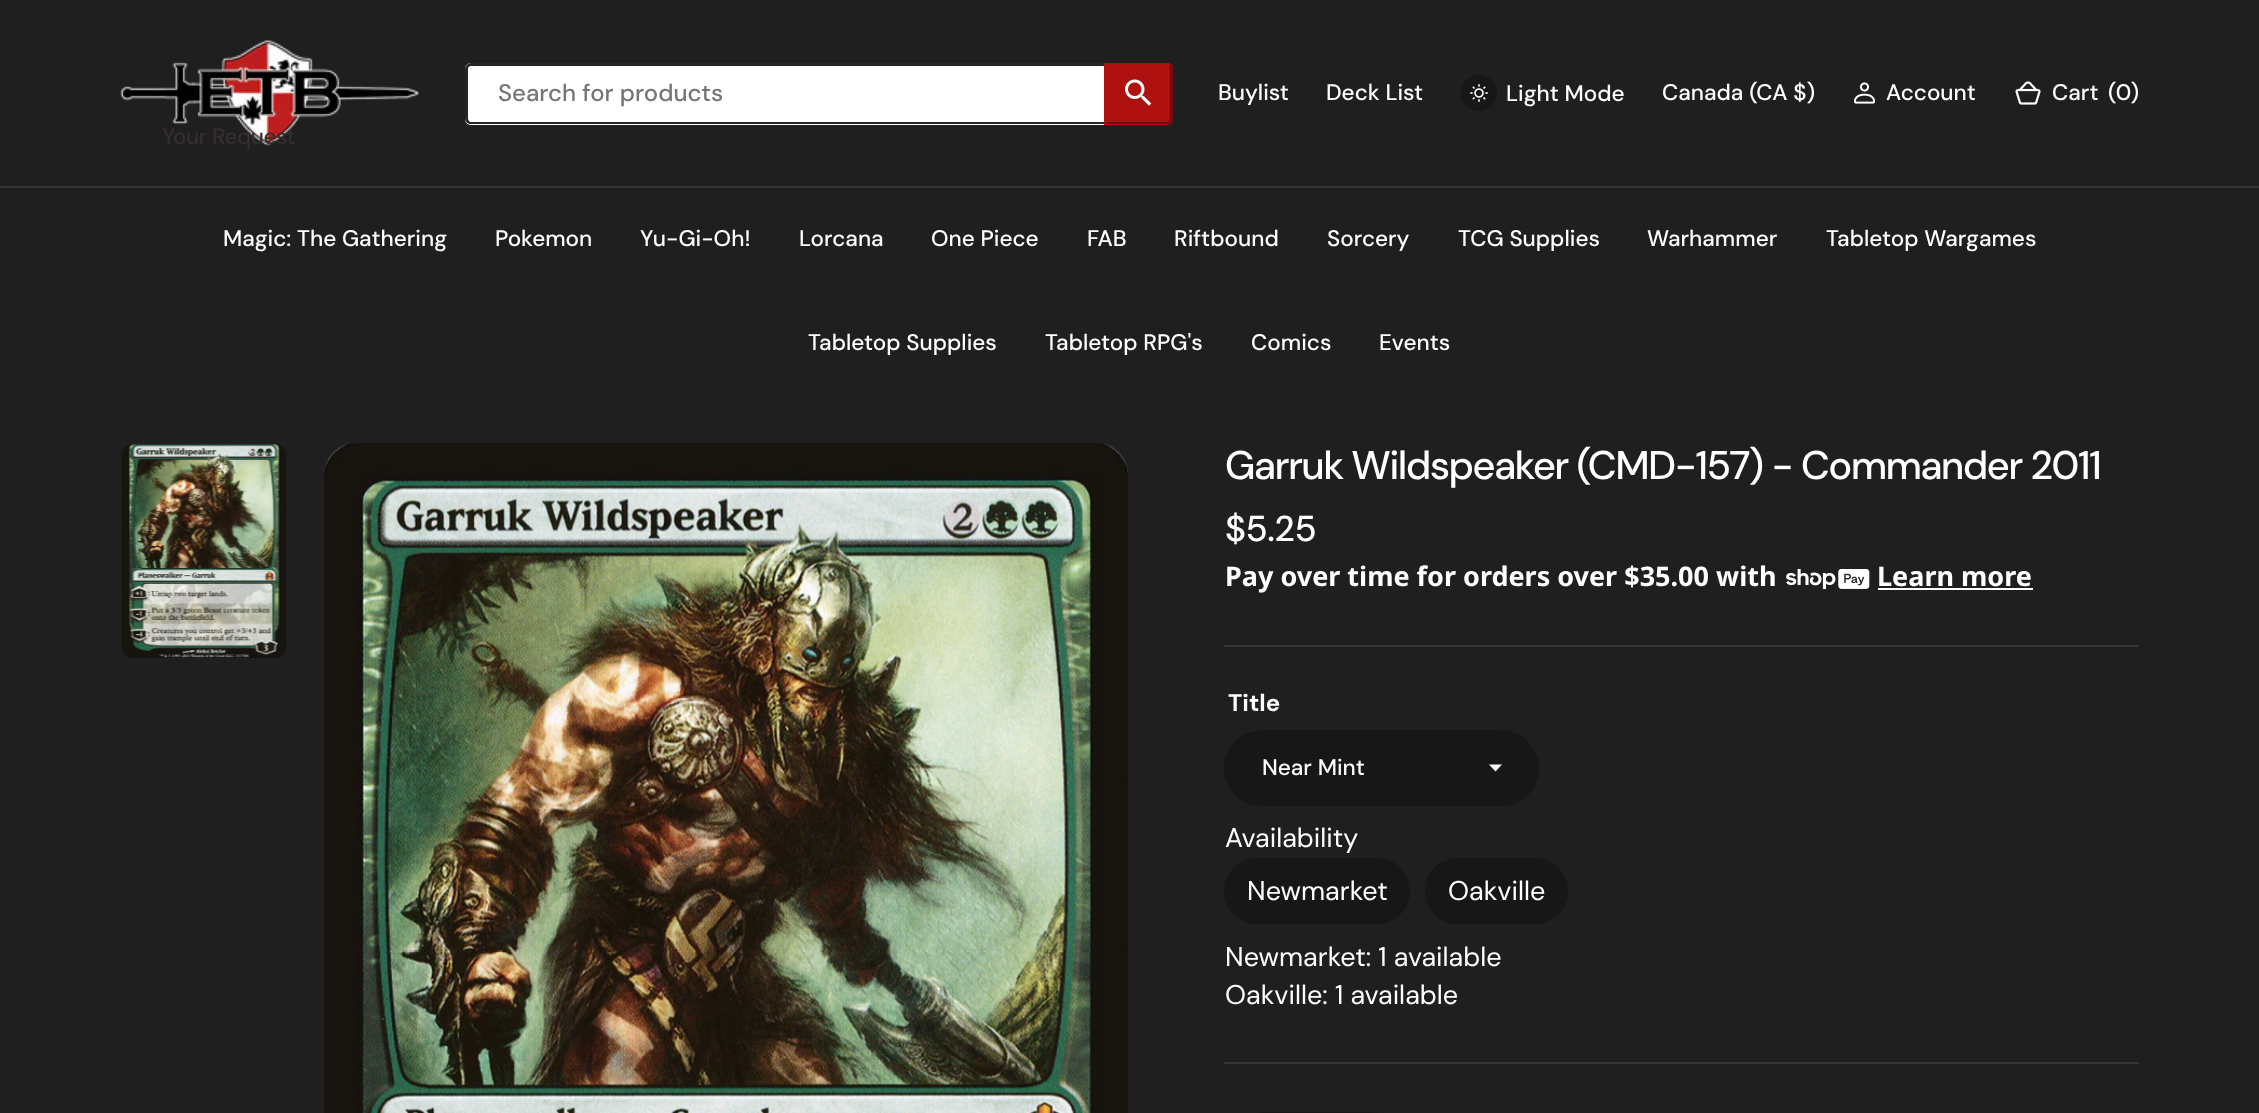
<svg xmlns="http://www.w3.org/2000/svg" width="2259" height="1113">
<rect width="100%" height="100%" fill="#1f1f1f"/>
<rect y="186" width="2259" height="2" fill="#353535"/>
<image x="120" y="40" width="299" height="106" href="media/1.png"/>
<path d="M471 63h633v62h-633c-3.5 0-6-2.5-6-6v-50c0-3.5 2.5-6 6-6z" fill="#fff"/>
<path d="M471 63h633v61h-633c-3 0-6-2-6-6v-49c0-3 3-6 6-6zm0 3h633v56h-633c-2 0-3-2-3-4v-49c0-2 1-3 3-3z" fill="#272525" fill-rule="evenodd"/>
<text x="498" y="101" style="font-family:'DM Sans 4';font-size:24px;font-weight:500;fill:#757575">Search for products</text>
<path d="M1104 63h63c3.5 0 6 2.5 6 6v50c0 3.5-2.5 6-6 6h-63z" fill="#af1010"/>
<path d="M1104 63l3 3c7 0 60-1 62 1l2-2c-1-1-3-2-4-2z" fill="#af1010"/>
<path d="M1173 118v-49c0-1-1-3-2-4l-2 2l1 2v41c0 1 1 8-1 11l2 2c1-1 2-3 2-5z" fill="#750b0b"/>
<path d="M1171 123c-1 1-3 1-4 1h-63l3-2h60l2-1z" fill="#750b0b"/>
<path d="M1107 66l-3-3v61l3-2z" fill="#af1010"/>
<image x="1125" y="79" width="27" height="27" href="media/2.png"/>
<text x="1218" y="100" style="font-family:'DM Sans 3';font-size:22.5px;font-weight:500;fill:#fff">Buylist</text>
<text x="1326" y="100" style="font-family:'DM Sans 3';font-size:22.5px;font-weight:500;fill:#fff">Deck List</text>
<circle cx="1479" cy="93" r="18" fill="#171717"/>
<image x="1470" y="84" width="18" height="18" href="media/3.png"/>
<text x="1506" y="101" style="font-family:'DM Sans 3';font-size:22.5px;font-weight:500;fill:#fff">Light Mode</text>
<text x="1662" y="100" style="font-family:'DM Sans 3';font-size:22.5px;font-weight:500;fill:#fff">Canada (CA $)</text>
<image x="1853" y="82" width="23" height="22" href="media/4.png"/>
<text x="1886" y="100" style="font-family:'DM Sans 3';font-size:22.5px;font-weight:500;fill:#fff">Account</text>
<image x="2015" y="81" width="26" height="24" href="media/5.png"/>
<text x="2052" y="100" style="font-family:'DM Sans 3';font-size:22.5px;font-weight:500;fill:#fff">Cart</text>
<text x="2108" y="100" style="font-family:'DM Sans 3';font-size:22.5px;font-weight:500;fill:#fff">(0)</text>
<text x="223" y="246" style="font-family:'DM Sans 3';font-size:22.5px;font-weight:500;fill:#fff">Magic: The Gathering</text>
<text x="495" y="246" style="font-family:'DM Sans 3';font-size:22.5px;font-weight:500;fill:#fff">Pokemon</text>
<text x="640" y="246" style="font-family:'DM Sans 3';font-size:22.5px;font-weight:500;fill:#fff">Yu-Gi-Oh!</text>
<text x="799" y="246" style="font-family:'DM Sans 3';font-size:22.5px;font-weight:500;fill:#fff">Lorcana</text>
<text x="931" y="246" style="font-family:'DM Sans 3';font-size:22.5px;font-weight:500;fill:#fff">One Piece</text>
<text x="1087" y="246" style="font-family:'DM Sans 3';font-size:22.5px;font-weight:500;fill:#fff">FAB</text>
<text x="1174" y="246" style="font-family:'DM Sans 3';font-size:22.5px;font-weight:500;fill:#fff">Riftbound</text>
<text x="1327" y="246" style="font-family:'DM Sans 3';font-size:22.5px;font-weight:500;fill:#fff">Sorcery</text>
<text x="1458" y="246" style="font-family:'DM Sans 3';font-size:22.5px;font-weight:500;fill:#fff">TCG Supplies</text>
<text x="1647" y="246" style="font-family:'DM Sans 3';font-size:22.5px;font-weight:500;fill:#fff">Warhammer</text>
<text x="1826" y="246" style="font-family:'DM Sans 3';font-size:22.5px;font-weight:500;fill:#fff">Tabletop Wargames</text>
<text x="808" y="350" style="font-family:'DM Sans 3';font-size:22.5px;font-weight:500;fill:#fff">Tabletop Supplies</text>
<text x="1045" y="350" style="font-family:'DM Sans 3';font-size:22.5px;font-weight:500;fill:#fff">Tabletop RPG's</text>
<text x="1251" y="350" style="font-family:'DM Sans 3';font-size:22.5px;font-weight:500;fill:#fff">Comics</text>
<text x="1379" y="350" style="font-family:'DM Sans 3';font-size:22.5px;font-weight:500;fill:#fff">Events</text>
<text x="162" y="144" style="font-family:'DM Sans 3';font-size:22.5px;font-weight:500;letter-spacing:-0.5px;fill:#362d2d">Your Request</text>
<image x="121" y="444" width="166" height="214" href="media/6.png"/>
<image x="324" y="443" width="804" height="670" href="media/7.png"/>
<text x="1225" y="479" style="font-family:DM Sans;font-size:39.9px;font-weight:500;letter-spacing:-1.2px;fill:#fff">Garruk Wildspeaker (CMD-157) - Commander 2011</text>
<text x="1225" y="541" style="font-family:'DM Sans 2';font-size:36px;font-weight:500;letter-spacing:-0.5px;fill:#fff">$5.25</text>
<text x="1225" y="586" style="font-family:Noto Sans;font-size:27px;font-weight:bold;fill:#fff">Pay over time for orders over $35.00 with</text>
<image x="1786" y="569" width="84" height="21" href="media/8.png"/>
<text x="1877" y="586" style="font-family:Noto Sans;font-size:27px;font-weight:bold;fill:#fff">Learn more</text>
<rect x="1878" y="588" width="155" height="2" fill="#fff"/>
<rect x="1224" y="645" width="915" height="2" fill="#353535"/>
<text x="1228" y="711" style="font-family:DM Sans;font-size:24px;font-weight:bold;fill:#fff">Title</text>
<rect x="1224" y="731" width="315" height="75" rx="37.5" fill="#171717"/>
<path d="M1235.5 742c7-7 16.5-11 26-11h240c9.5 0 19 4 26 11" fill="none" stroke="#171717" stroke-width="1.5"/>
<text x="1262" y="775" style="font-family:'DM Sans 3';font-size:22.5px;font-weight:500;fill:#fff">Near Mint</text>
<path d="M1495.5 771.5l-6.5-7h13z" fill="#fff"/>
<text x="1225" y="847" style="font-family:DM Sans;font-size:27px;fill:#fff">Availability</text>
<rect x="1224" y="858" width="186" height="66" rx="33" fill="#171717"/>
<text x="1247" y="900" style="font-family:DM Sans;font-size:27px;fill:#fff">Newmarket</text>
<rect x="1425" y="858" width="143" height="66" rx="33" fill="#171717"/>
<text x="1448" y="900" style="font-family:DM Sans;font-size:27px;fill:#fff">Oakville</text>
<text x="1225" y="966" style="font-family:DM Sans;font-size:27px;fill:#fff">Newmarket: 1 available</text>
<text x="1225" y="1004" style="font-family:DM Sans;font-size:27px;fill:#fff">Oakville: 1 available</text>
<rect x="1224" y="1062" width="915" height="2" fill="#353535"/>
<rect x="1224" y="1112" width="188" height="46" rx="45" fill="#171717"/>
</svg>
